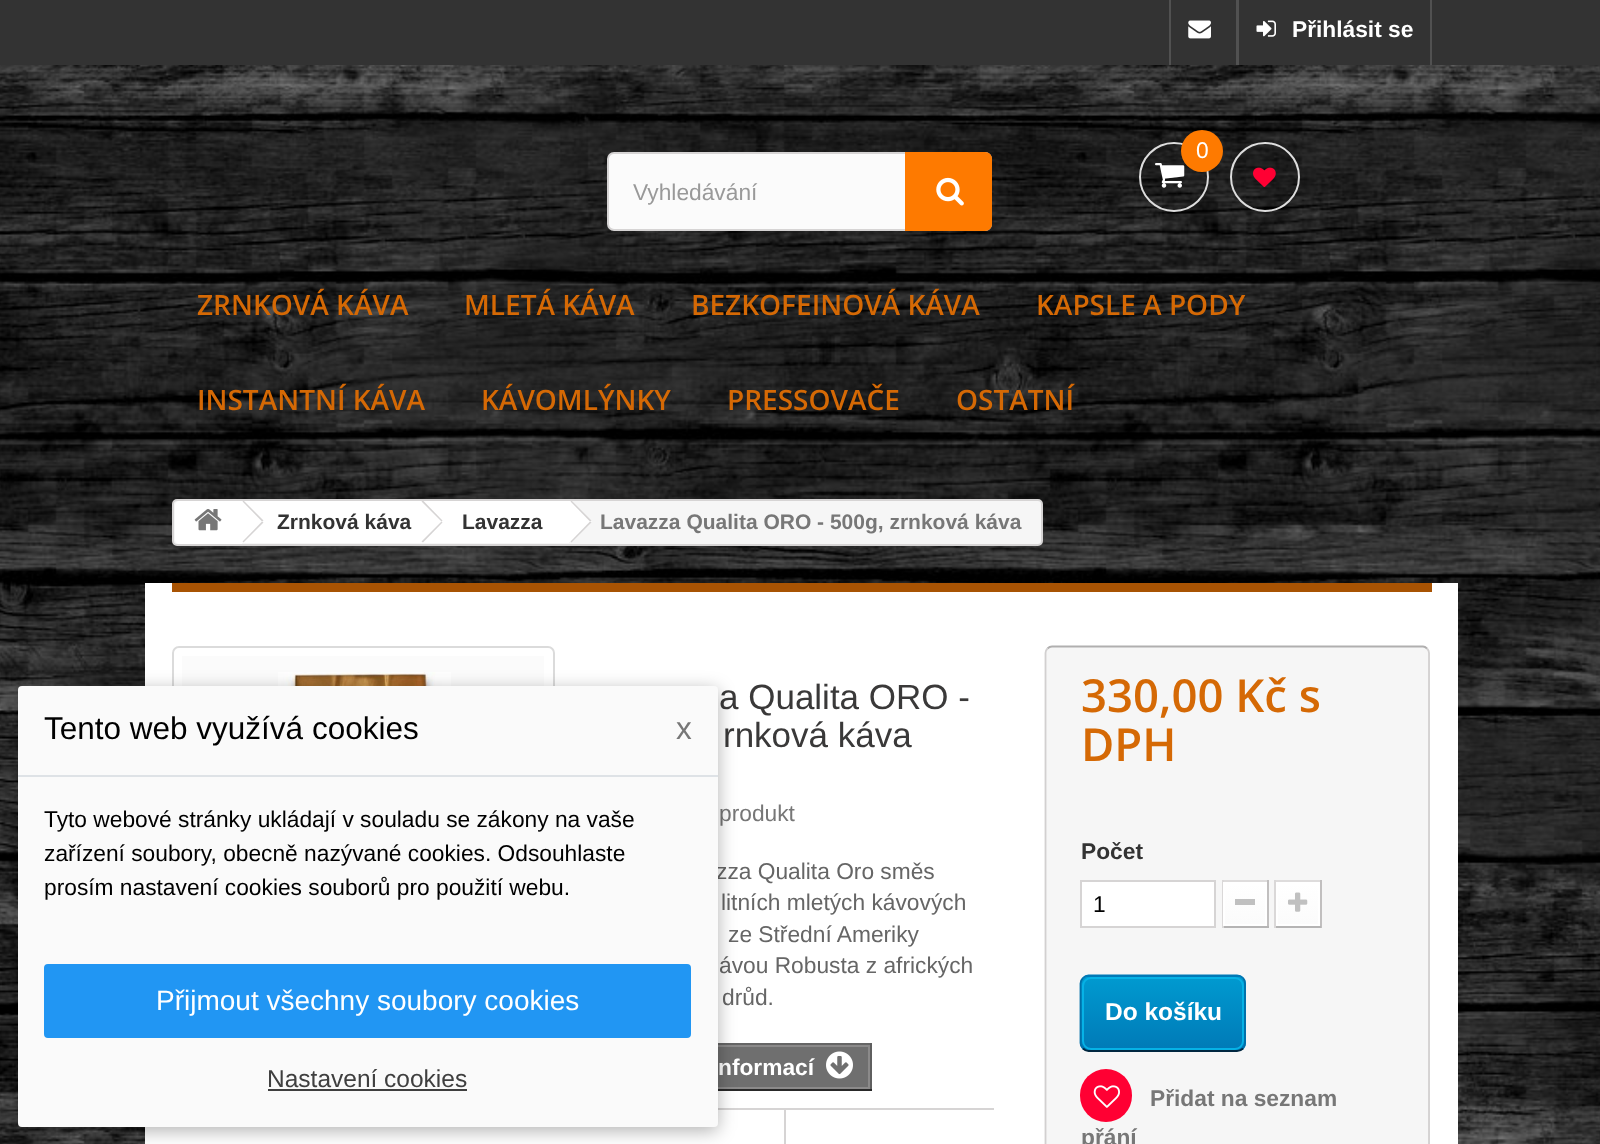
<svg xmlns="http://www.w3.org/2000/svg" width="1600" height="1144">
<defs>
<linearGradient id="g1" gradientUnits="userSpaceOnUse" x1="1245" y1="884" x2="1245" y2="924"><stop offset="0" stop-color="#fff"/><stop offset="1" stop-color="#fbfbfb"/></linearGradient>
<linearGradient id="g2" gradientUnits="userSpaceOnUse" x1="1298" y1="884" x2="1298" y2="924"><stop offset="0" stop-color="#fff"/><stop offset="1" stop-color="#fbfbfb"/></linearGradient>
<clipPath id="clip1"><rect x="1080" y="975" width="166" height="77" rx="9"/></clipPath>
<linearGradient id="g3" gradientUnits="userSpaceOnUse" x1="1163" y1="903" x2="1163" y2="977"><stop offset="0" stop-color="#009ad0"/><stop offset="1" stop-color="#007ab7"/></linearGradient>
<linearGradient id="g4" gradientUnits="userSpaceOnUse" x1="1163" y1="977" x2="1163" y2="1050"><stop offset="0" stop-color="#009ad0"/><stop offset="1" stop-color="#007ab7"/></linearGradient>
</defs>
<rect width="100%" height="100%" fill="#fff"/>
<image x="0" y="65" width="1600" height="1079" href="media/1.png"/>
<rect width="1600" height="65" fill="#333"/>
<rect x="1169" width="2" height="65" fill="#515151"/>
<image x="1188" y="20" width="23" height="19" href="media/2.png"/>
<rect x="1430" width="2" height="65" fill="#515151"/>
<rect x="1236" width="3" height="65" fill="#515151"/>
<image x="1256" y="20" width="20" height="17" href="media/3.png"/>
<text x="1292" y="37" style="font-family:Liberation Sans;font-size:22.75px;font-weight:bold;fill:#fff">Přihlásit se</text>
<circle cx="1174" cy="177" r="34" fill="none" stroke="#ddd" stroke-width="2"/>
<image x="1155" y="163" width="30" height="25" href="media/4.png"/>
<circle cx="1202" cy="151" r="21" fill="#fe7a00"/>
<text x="1196" y="158" style="font-family:Liberation Sans;font-size:22.75px;fill:#fff">0</text>
<circle cx="1265" cy="177" r="34" fill="none" stroke="#ddd" stroke-width="2"/>
<image x="1253" y="167" width="23" height="21" href="media/5.png"/>
<rect x="608" y="153" width="383" height="77" rx="6" fill="#fbfbfb" stroke="#d6d4d4" stroke-width="2"/>
<text x="633" y="200" style="font-family:Liberation Sans;font-size:22.75px;fill:#999">Vyhledávání</text>
<path d="M905 152h80c4 0 7 3 7 7v65c0 4-3 7-7 7h-80z" fill="#fe7a00"/>
<image x="936" y="177" width="28" height="29" href="media/6.png"/>
<text x="197" y="315" style="font-family:Open Sans;font-size:28px;font-weight:600;fill:#d56905">ZRNKOVÁ KÁVA</text>
<text x="464" y="315" style="font-family:Open Sans;font-size:28px;font-weight:600;fill:#d56905">MLETÁ KÁVA</text>
<text x="691" y="315" style="font-family:Open Sans;font-size:28px;font-weight:600;fill:#d56905">BEZKOFEINOVÁ KÁVA</text>
<text x="1036" y="315" style="font-family:Open Sans;font-size:28px;font-weight:600;fill:#d56905">KAPSLE A PODY</text>
<text x="197" y="410" style="font-family:Open Sans;font-size:28px;font-weight:600;fill:#d56905">INSTANTNÍ KÁVA</text>
<text x="481" y="410" style="font-family:Open Sans;font-size:28px;font-weight:600;fill:#d56905">KÁVOMLÝNKY</text>
<text x="727" y="410" style="font-family:Open Sans;font-size:28px;font-weight:600;fill:#d56905">PRESSOVAČE</text>
<text x="956" y="410" style="font-family:Open Sans;font-size:28px;font-weight:600;fill:#d56905">OSTATNÍ</text>
<rect x="173" y="500" width="869" height="45" rx="4" fill="#f6f6f6" stroke="#d6d4d4" stroke-width="2"/>
<path d="M180 501h62v43h-62c-3 0-5-2-5-5v-33c0-3 2-5 5-5z" fill="#fff"/>
<image x="194" y="509" width="28" height="22" href="media/7.png"/>
<rect x="242" y="501" width="182" height="42" fill="#fff"/>
<path d="M243.5 500.5l20 20l-1.5 1l-19.5-20z" fill="#d6d4d4"/>
<path d="M262 521.5l1.5 1l-20 20l-1-1z" fill="#d6d4d4"/>
<text x="277" y="529" style="font-family:Liberation Sans;font-size:21px;font-weight:bold;fill:#333">Zrnková káva</text>
<path d="M442 502l-1-1h-3l-16 15c-5 5-5 6 0 11l15 14c3 3 5 0 8-3l8-8c2-2 10-7 6-11z" fill="#fff"/>
<rect x="424" y="501" width="145" height="42" fill="#fff"/>
<path d="M423.5 501l19 19.5l-1 1l-20-20l.5-.5z" fill="#d6d4d4"/>
<path d="M441.5 521.5l1 1l-19.5 20l-1.5-1z" fill="#d6d4d4"/>
<text x="462" y="529" style="font-family:Liberation Sans;font-size:21px;font-weight:bold;fill:#333">Lavazza</text>
<path d="M573 502l-1-1h-3l-19 19c-1 1-1 2 0 3l19 19h1c3 0 12-10 14-12c2-2 11-8 6-11z" fill="#fff"/>
<path d="M571.5 500.5l20 20l-1.5 1l-19.5-20z" fill="#d6d4d4"/>
<path d="M590 521.5l1.5 1l-20 20l-1-1z" fill="#d6d4d4"/>
<text x="600" y="529" style="font-family:Liberation Sans;font-size:21px;font-weight:bold;fill:#777">Lavazza Qualita ORO - 500g, zrnková káva</text>
<rect x="145" y="583" width="1313" height="561" fill="#fff"/>
<rect x="172" y="583" width="1260" height="9" fill="#a85303"/>
<rect x="173" y="647" width="381" height="383" rx="6" fill="none" stroke="#dbdbdb" stroke-width="2"/>
<rect x="182" y="656" width="362" height="30" fill="#fbfbfb"/>
<image x="278" y="672" width="173" height="14" href="media/8.png"/>
<text x="719" y="709" style="font-family:Liberation Sans;font-size:35px;fill:#3a3939">a Qualita ORO -</text>
<text x="723" y="747" style="font-family:Liberation Sans;font-size:35px;fill:#3a3939">rnková káva</text>
<text x="719" y="821" style="font-family:Liberation Sans;font-size:22.75px;fill:#777">produkt</text>
<text x="716" y="879" style="font-family:Liberation Sans;font-size:22.75px;fill:#666">zza Qualita Oro směs</text>
<text x="721" y="910" style="font-family:Liberation Sans;font-size:22.75px;fill:#666">litních mletých kávových</text>
<text x="728" y="942" style="font-family:Liberation Sans;font-size:22.75px;fill:#666">ze Střední Ameriky</text>
<text x="719" y="973" style="font-family:Liberation Sans;font-size:22.75px;fill:#666">ávou Robusta z afrických</text>
<text x="722" y="1005" style="font-family:Liberation Sans;font-size:22.75px;fill:#666">drůd.</text>
<rect x="718" y="1047" width="150" height="40" fill="#6f6f6f"/>
<rect x="718" y="1043" width="154" height="2" fill="#666"/>
<rect x="870" y="1043" width="2" height="47" fill="#5f5f5f"/>
<rect x="718" y="1089" width="154" height="2" fill="#292929"/>
<rect x="643" y="1046" width="226" height="42" fill="none" stroke="#8b8a8a" stroke-width="2"/>
<text x="718" y="1075" style="font-family:Liberation Sans;font-size:22.75px;font-weight:bold;fill:#fff">nformací</text>
<image x="826" y="1051" width="27" height="28" href="media/9.png"/>
<rect x="718" y="1108" width="276" height="2" fill="#d6d4d4"/>
<rect x="784" y="1108" width="2" height="36" fill="#d6d4d4"/>
<rect x="1045" y="646" width="385" height="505" rx="7" fill="#f6f6f6"/>
<path d="M1047.5 648.5c1-1 2.5-2 4.5-2h371c1.5 0 3 1 4 2" fill="none" stroke="#b0afaf" stroke-width="1.8"/>
<path d="M1427 648.5c1 1 2 2.5 2 4.5v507c0 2-1 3.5-2 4.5" fill="none" stroke="#d2d0d0" stroke-width="1.8"/>
<path d="M1047.5 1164.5c-1-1-2-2.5-2-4.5v-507c0-2 1-3.5 2-4.5" fill="none" stroke="#d2d0d0" stroke-width="1.8"/>
<text x="1081" y="712" style="font-family:Open Sans;font-size:45.5px;font-weight:600;fill:#d56905">330,00 Kč s</text>
<text x="1081" y="761" style="font-family:Open Sans;font-size:45.5px;font-weight:600;fill:#d56905">DPH</text>
<text x="1081" y="859" style="font-family:Liberation Sans;font-size:22.75px;font-weight:bold;fill:#333">Počet</text>
<rect x="1081" y="881" width="134" height="46" fill="#fff" stroke="#d6d4d4" stroke-width="2"/>
<text x="1093" y="912" style="font-family:Liberation Sans;font-size:22.75px;fill:#000">1</text>
<rect x="1222" y="880" width="47" height="2" fill="#dedcdc"/>
<rect x="1267" y="880" width="2" height="48" fill="#c1bfbf"/>
<rect x="1222" y="926" width="47" height="2" fill="#b5b4b4"/>
<rect x="1222" y="880" width="2" height="48" fill="#dad8d8"/>
<rect x="1225" y="884" width="40" height="40" fill="url(#g1)"/>
<rect x="1224" y="883" width="42" height="42" fill="none" stroke="#fff" stroke-width="2"/>
<rect x="1235" y="899" width="20" height="6" fill="#c0c0c0"/>
<rect x="1274" y="880" width="47" height="2" fill="#dedcdc"/>
<rect x="1320" y="880" width="2" height="48" fill="#c1bfbf"/>
<rect x="1274" y="926" width="47" height="2" fill="#b5b4b4"/>
<rect x="1274" y="880" width="2" height="48" fill="#dad8d8"/>
<rect x="1278" y="884" width="40" height="40" fill="url(#g2)"/>
<rect x="1277" y="883" width="42" height="42" fill="none" stroke="#fff" stroke-width="2"/>
<image x="1288" y="892" width="20" height="20" href="media/10.png"/>
<g clip-path="url(#clip1)">
<rect x="1080" y="975" width="166" height="2" fill="url(#g3)"/>
<rect x="1080" y="977" width="166" height="73" fill="url(#g4)"/>
</g>
<path d="M1083 978c1.5-1.5 3.5-2.5 5.5-2.5h148.5c2.5 0 4.5 1 6 2.5" fill="none" stroke="#0079b6" stroke-width="1.8"/>
<path d="M1243 978c1.5 1.5 2 3.5 2 5.5v59.5c0 2-.5 4-2 5.5" fill="none" stroke="#006fa8" stroke-width="1.8"/>
<path d="M1243 1048.5c-1.5 1.5-3.5 2.5-6 2.5h-148.5c-2 0-4-1-5.5-2.5" fill="none" stroke="#012740" stroke-width="1.8"/>
<path d="M1083 1048.5c-1.5-1.5-2.5-3.5-2.5-5.5v-59.5c0-2 1-4 2.5-5.5" fill="none" stroke="#006fa8" stroke-width="1.8"/>
<rect x="1083" y="978" width="160" height="71" rx="8" fill="none" stroke="#06b2e6" stroke-width="2"/>
<text x="1105" y="1020" style="font-family:Liberation Sans;font-size:24.5px;font-weight:bold;fill:#fff">Do košíku</text>
<rect x="1080" y="1069" width="52" height="53" rx="26" fill="#f03"/>
<image x="1093" y="1085" width="27" height="23" href="media/11.png"/>
<text x="1150" y="1106" style="font-family:Liberation Sans;font-size:22.75px;font-weight:bold;fill:#777">Přidat na seznam</text>
<text x="1081" y="1145" style="font-family:Liberation Sans;font-size:22.75px;font-weight:bold;fill:#777">přání</text>
<rect x="18" y="690" width="700" height="441" rx="4" fill="#0000004d" filter="blur(9px)"/>
<rect x="18" y="686" width="700" height="441" rx="4" fill="#fafafa"/>
<rect x="18" y="775" width="700" height="2" fill="#dee2e6"/>
<text x="44" y="739" style="font-family:Liberation Sans;font-size:31.5px;fill:#000">Tento web využívá cookies</text>
<text x="676" y="739" style="font-family:Liberation Sans;font-size:31.5px;fill:#777">x</text>
<text x="44" y="827" style="font-family:Liberation Sans;font-size:22.75px;fill:#000">Tyto webové stránky ukládají v souladu se zákony na vaše</text>
<text x="44" y="861" style="font-family:Liberation Sans;font-size:22.75px;fill:#000">zařízení soubory, obecně nazývané cookies. Odsouhlaste</text>
<text x="44" y="895" style="font-family:Liberation Sans;font-size:22.75px;fill:#000">prosím nastavení cookies souborů pro použití webu.</text>
<rect x="45" y="965" width="645" height="72" rx="3" fill="#2196f3" stroke="#2196f3" stroke-width="2"/>
<text x="156" y="1010" style="font-family:Liberation Sans;font-size:28px;fill:#fff">Přijmout všechny soubory cookies</text>
<text x="267" y="1087" style="font-family:Liberation Sans;font-size:24.5px;fill:#3f3f3f">Nastavení cookies</text>
<rect x="268" y="1089" width="199" height="2" fill="#3f3f3f"/>
</svg>
